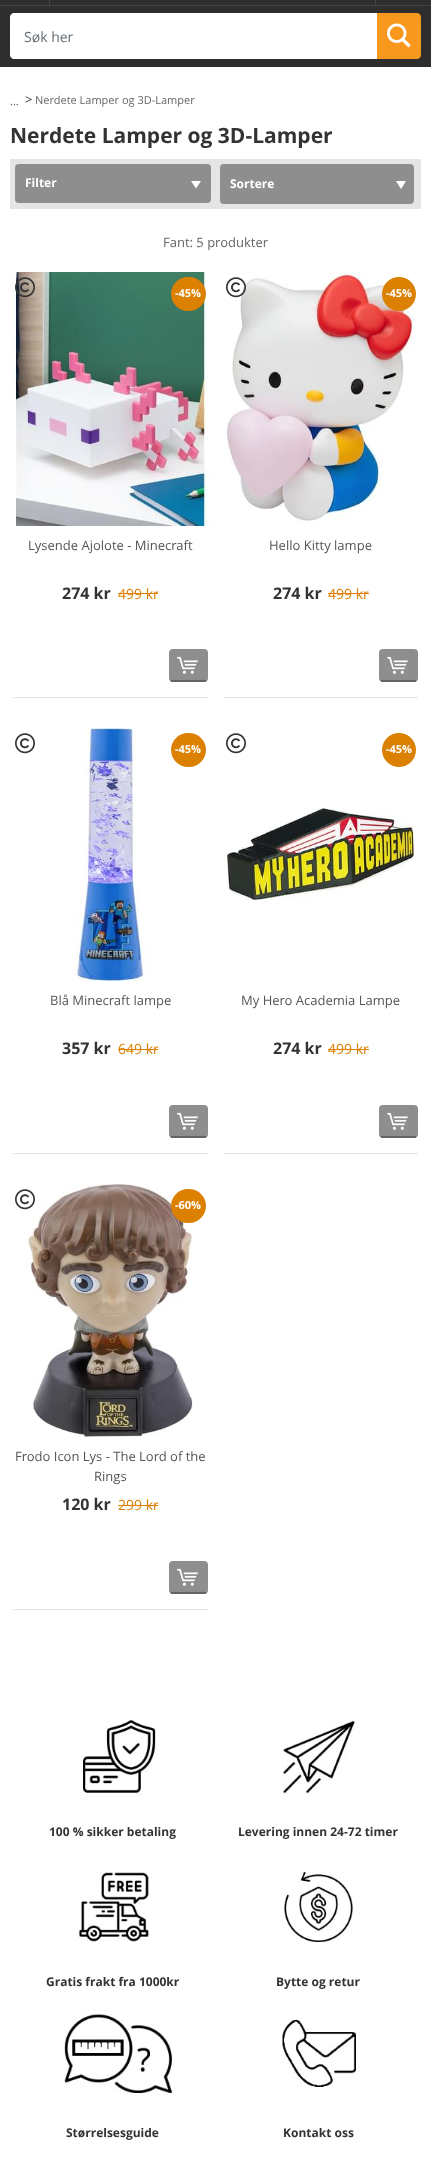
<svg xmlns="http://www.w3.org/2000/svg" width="431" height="2166">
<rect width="100%" height="100%" fill="#fff"/>
<rect width="431" height="67" fill="#2e2e2e"/>
<rect x="49" width="1" height="5" fill="#444"/>
<rect x="375" width="1" height="5" fill="#444"/>
<rect y="5" width="431" height="1" fill="#444"/>
<path d="M14 14h362v44h-362c-1.5 0-3-1.5-3-3v-38c0-1.5 1.5-3 3-3z" fill="#fff" stroke="#fff" stroke-width="2"/>
<text x="24" y="42" style="font-family:Open Sans;font-size:14px;fill:#636c72">Søk her</text>
<path d="M377 13h40c2 0 4 2 4 4v38c0 2-2 4-4 4h-40z" fill="#f8981d"/>
<image x="387" y="23" width="24" height="25" href="media/1.png"/>
<text x="10" y="105" style="font-family:Open Sans;font-size:11px;fill:#555">...</text>
<text x="25" y="104" style="font-family:Open Sans;font-size:13px;fill:#333">&gt;</text>
<text x="35" y="104" style="font-family:Open Sans;font-size:11px;fill:#666">Nerdete Lamper og 3D-Lamper</text>
<text x="10" y="143" style="font-family:Open Sans;font-size:21px;font-weight:bold;fill:#333">Nerdete Lamper og 3D-Lamper</text>
<rect x="10" y="159" width="411" height="50" fill="#e5e5e5"/>
<rect x="15" y="164" width="196" height="39" rx="4" fill="#8e8e8e"/>
<text x="25" y="187" style="font-family:Open Sans;font-size:12px;font-weight:bold;fill:#fff">Filter</text>
<path d="M196 188.5l-5-7.5h10z" fill="#fff"/>
<rect x="221" y="165" width="192" height="38" rx="3" fill="#8e8e8e" stroke="#8e8e8e" stroke-width="2"/>
<text x="230" y="188" style="font-family:Open Sans;font-size:12px;font-weight:bold;fill:#fff">Sortere</text>
<path d="M396 181h10l-5 8z" fill="#fff"/>
<text x="163" y="247" style="font-family:Open Sans;font-size:13px;fill:#666">Fant: 5 produkter</text>
<image x="10" y="272" width="201" height="254" href="media/2.png"/>
<image x="15" y="277" width="20" height="21" href="media/3.png"/>
<rect x="171" y="277" width="35" height="34" rx="17" fill="#db8000"/>
<text x="175" y="297" style="font-family:Open Sans;font-size:11px;font-weight:bold;fill:#fff">-45%</text>
<text x="28" y="550" style="font-family:Open Sans;font-size:13px;fill:#555">Lysende Ajolote - Minecraft</text>
<text x="62" y="599" style="font-family:Open Sans;font-size:16px;font-weight:bold;fill:#333">274 kr</text>
<text x="118" y="599" style="font-family:Open Sans;font-size:14px;fill:#db8000">499 kr</text>
<rect x="118" y="593" width="40" height="1" fill="#db8000"/>
<rect x="13" y="697" width="195" height="1" fill="#e5e5e5"/>
<rect x="169" y="649" width="39" height="33" rx="4" fill="#8e8e8e"/>
<rect x="171" y="680" width="35" height="2" fill="#646464"/>
<image x="177" y="656" width="21" height="18" href="media/4.png"/>
<image x="221" y="272" width="200" height="254" href="media/5.png"/>
<image x="226" y="277" width="20" height="21" href="media/6.png"/>
<circle cx="399" cy="294" r="17" fill="#db8000"/>
<text x="386" y="297" style="font-family:Open Sans;font-size:11px;font-weight:bold;fill:#fff">-45%</text>
<text x="269" y="550" style="font-family:Open Sans;font-size:13px;fill:#555">Hello Kitty lampe</text>
<text x="273" y="599" style="font-family:Open Sans;font-size:16px;font-weight:bold;fill:#333">274 kr</text>
<text x="328" y="599" style="font-family:Open Sans;font-size:14px;fill:#db8000">499 kr</text>
<rect x="328" y="593" width="41" height="1" fill="#db8000"/>
<rect x="224" y="697" width="194" height="1" fill="#e5e5e5"/>
<rect x="379" y="649" width="39" height="33" rx="4" fill="#8e8e8e"/>
<rect x="381" y="680" width="35" height="2" fill="#646464"/>
<image x="387" y="656" width="21" height="18" href="media/4.png"/>
<image x="10" y="728" width="201" height="253" href="media/7.png"/>
<image x="15" y="733" width="20" height="21" href="media/8.png"/>
<rect x="171" y="733" width="35" height="34" rx="17" fill="#db8000"/>
<text x="175" y="753" style="font-family:Open Sans;font-size:11px;font-weight:bold;fill:#fff">-45%</text>
<text x="50" y="1005" style="font-family:Open Sans;font-size:13px;fill:#555">Blå Minecraft lampe</text>
<text x="62" y="1054" style="font-family:Open Sans;font-size:16px;font-weight:bold;fill:#333">357 kr</text>
<text x="118" y="1054" style="font-family:Open Sans;font-size:14px;fill:#db8000">649 kr</text>
<rect x="118" y="1049" width="40" height="1" fill="#db8000"/>
<rect x="13" y="1153" width="195" height="1" fill="#e5e5e5"/>
<rect x="169" y="1105" width="39" height="33" rx="4" fill="#8e8e8e"/>
<rect x="171" y="1136" width="35" height="2" fill="#646464"/>
<image x="177" y="1112" width="21" height="18" href="media/4.png"/>
<image x="221" y="728" width="200" height="253" href="media/9.png"/>
<image x="226" y="733" width="20" height="21" href="media/8.png"/>
<circle cx="399" cy="750" r="17" fill="#db8000"/>
<text x="386" y="753" style="font-family:Open Sans;font-size:11px;font-weight:bold;fill:#fff">-45%</text>
<text x="241" y="1005" style="font-family:Open Sans;font-size:13px;fill:#555">My Hero Academia Lampe</text>
<text x="273" y="1054" style="font-family:Open Sans;font-size:16px;font-weight:bold;fill:#333">274 kr</text>
<text x="328" y="1054" style="font-family:Open Sans;font-size:14px;fill:#db8000">499 kr</text>
<rect x="328" y="1049" width="41" height="1" fill="#db8000"/>
<rect x="224" y="1153" width="194" height="1" fill="#e5e5e5"/>
<rect x="379" y="1105" width="39" height="33" rx="4" fill="#8e8e8e"/>
<rect x="381" y="1136" width="35" height="2" fill="#646464"/>
<image x="387" y="1112" width="21" height="18" href="media/4.png"/>
<image x="10" y="1184" width="201" height="253" href="media/10.png"/>
<image x="15" y="1189" width="20" height="21" href="media/8.png"/>
<rect x="171" y="1189" width="35" height="34" rx="17" fill="#db8000"/>
<text x="175" y="1209" style="font-family:Open Sans;font-size:11px;font-weight:bold;fill:#fff">-60%</text>
<text x="15" y="1461" style="font-family:Open Sans;font-size:13px;fill:#555">Frodo Icon Lys - The Lord of the</text>
<text x="94" y="1481" style="font-family:Open Sans;font-size:13px;fill:#555">Rings</text>
<text x="62" y="1510" style="font-family:Open Sans;font-size:16px;font-weight:bold;fill:#333">120 kr</text>
<text x="118" y="1510" style="font-family:Open Sans;font-size:14px;fill:#db8000">299 kr</text>
<rect x="118" y="1505" width="40" height="1" fill="#db8000"/>
<rect x="13" y="1609" width="195" height="1" fill="#e5e5e5"/>
<rect x="169" y="1561" width="39" height="33" rx="4" fill="#8e8e8e"/>
<rect x="171" y="1592" width="35" height="2" fill="#646464"/>
<image x="177" y="1568" width="21" height="18" href="media/4.png"/>
<image x="81" y="1719" width="78" height="77" href="media/11.png"/>
<text x="49" y="1836" style="font-family:Open Sans;font-size:12px;font-weight:bold;fill:#333">100 % sikker betaling</text>
<image x="281" y="1720" width="76" height="75" href="media/12.png"/>
<text x="238" y="1836" style="font-family:Open Sans;font-size:12px;font-weight:bold;fill:#333">Levering innen 24-72 timer</text>
<image x="79" y="1871" width="71" height="71" href="media/13.png"/>
<text x="46" y="1986" style="font-family:Open Sans;font-size:12px;font-weight:bold;fill:#333">Gratis frakt fra 1000kr</text>
<image x="284" y="1870" width="69" height="72" href="media/14.png"/>
<text x="276" y="1986" style="font-family:Open Sans;font-size:12px;font-weight:bold;fill:#333">Bytte og retur</text>
<image x="64" y="2014" width="108" height="80" href="media/15.png"/>
<text x="66" y="2137" style="font-family:Open Sans;font-size:12px;font-weight:bold;fill:#333">Størrelsesguide</text>
<image x="282" y="2019" width="75" height="71" href="media/16.png"/>
<text x="283" y="2137" style="font-family:Open Sans;font-size:12px;font-weight:bold;fill:#333">Kontakt oss</text>
</svg>
